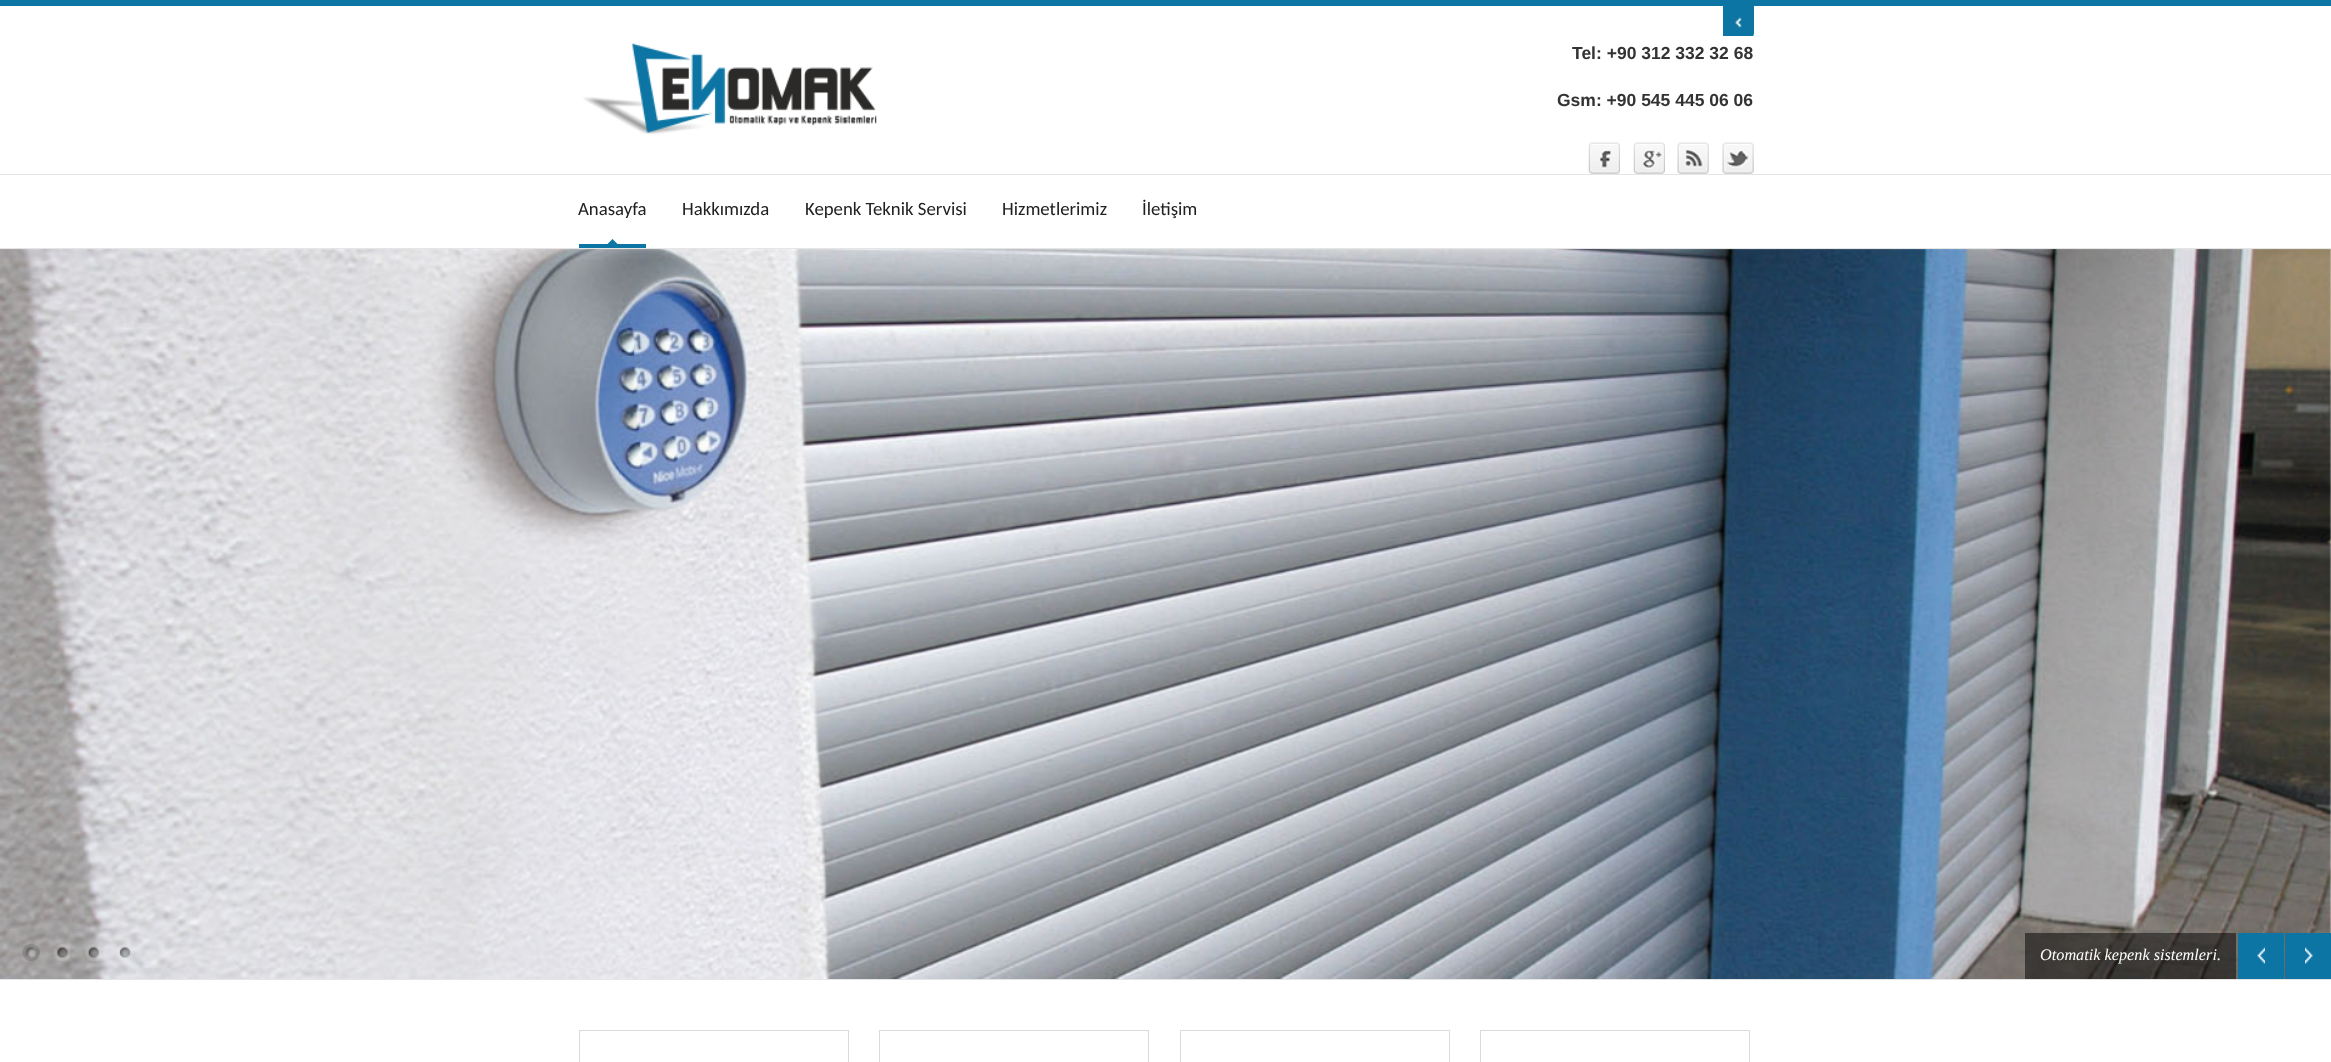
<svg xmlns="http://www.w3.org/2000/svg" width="2331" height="1062">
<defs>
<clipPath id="clip1"><rect x="579" y="6" width="1175" height="30"/></clipPath>
</defs>
<rect width="100%" height="100%" fill="#fff"/>
<rect width="2331" height="6" fill="#0d75a4"/>
<g clip-path="url(#clip1)">
<path d="M1723 6h31v27c0 3-2 5-5 5h-26z" fill="#0d75a4"/>
</g>
<image x="1735" y="17" width="7" height="11" href="media/1.png"/>
<image x="583" y="43" width="294" height="91" href="media/2.png"/>
<text x="1572" y="59" style="font-family:Liberation Sans;font-size:17.5px;font-weight:bold;fill:#333">Tel: +90 312 332 32 68</text>
<text x="1557" y="106" style="font-family:Liberation Sans;font-size:17.5px;font-weight:bold;fill:#333">Gsm: +90 545 445 06 06</text>
<image x="1588" y="142" width="32" height="32" href="media/3.png"/>
<image x="1633" y="142" width="32" height="32" href="media/4.png"/>
<image x="1677" y="142" width="32" height="32" href="media/5.png"/>
<image x="1722" y="142" width="32" height="32" href="media/6.png"/>
<rect y="174" width="2331" height="1" fill="#e5e5e5"/>
<rect y="248" width="2331" height="1" fill="#e5e5e5"/>
<rect x="579" y="244" width="67" height="4" fill="#0d75a4"/>
<text x="578" y="215" style="font-family:Carlito;font-size:18.75px;fill:#202020">Anasayfa</text>
<path d="M617.5 244h-10l5-5z" fill="#0d75a4"/>
<text x="682" y="215" style="font-family:Carlito;font-size:18.75px;fill:#202020">Hakkımızda</text>
<text x="805" y="215" style="font-family:Carlito;font-size:18.75px;fill:#202020">Kepenk Teknik Servisi</text>
<text x="1002" y="215" style="font-family:Carlito;font-size:18.75px;fill:#202020">Hizmetlerimiz</text>
<text x="1142" y="215" style="font-family:Carlito;font-size:18.75px;fill:#202020">İletişim</text>
<rect y="979" width="2331" height="1" fill="#e5e5e5"/>
<image x="0" y="249" width="2331" height="730" href="media/11.png"/>
<image x="22" y="943" width="18" height="19" href="media/7.png"/>
<image x="53" y="944" width="19" height="18" href="media/8.png"/>
<image x="85" y="944" width="17" height="18" href="media/9.png"/>
<image x="117" y="944" width="17" height="17" href="media/10.png"/>
<rect x="2025" y="933" width="211" height="46" fill="#00000080"/>
<text x="2040" y="960" style="font-family:Liberation Serif;font-size:16.25px;font-style:italic;fill:#fff">Otomatik kepenk sistemleri.</text>
<rect x="2238" y="933" width="46" height="46" fill="#0d75a4"/>
<image x="2257" y="947" width="8" height="17" href="media/12.png"/>
<rect x="2285" y="933" width="46" height="46" fill="#0d75a4"/>
<image x="2305" y="947" width="8" height="17" href="media/13.png"/>
<rect x="579.5" y="1030.5" width="269" height="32" fill="none" stroke="#dbdbdb"/>
<rect x="879.5" y="1030.5" width="269" height="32" fill="none" stroke="#dbdbdb"/>
<rect x="1180.5" y="1030.5" width="269" height="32" fill="none" stroke="#dbdbdb"/>
<rect x="1480.5" y="1030.5" width="269" height="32" fill="none" stroke="#dbdbdb"/>
</svg>
